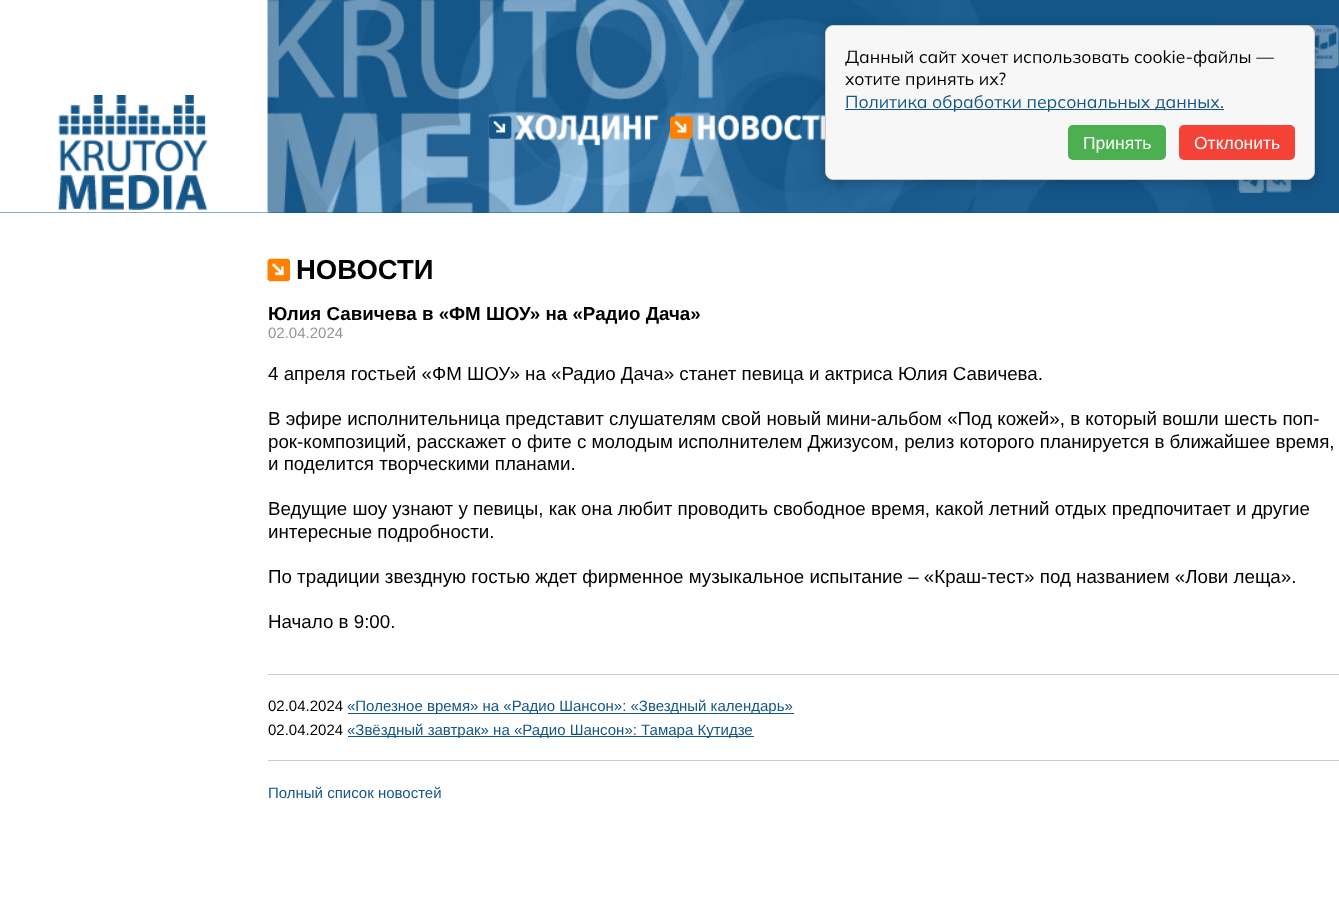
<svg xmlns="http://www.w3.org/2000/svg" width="1339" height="923">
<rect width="100%" height="100%" fill="#155688"/>
<image x="0" y="0" width="1214" height="213" href="media/1.png"/>
<image x="58" y="95" width="150" height="115" href="media/2.png"/>
<image x="488" y="114" width="171" height="32" href="media/3.png"/>
<image x="670" y="114" width="155" height="27" href="media/4.png"/>
<image x="1307" y="25" width="32" height="44" href="media/5.png"/>
<image x="1237" y="180" width="28" height="13" href="media/6.png"/>
<image x="1266" y="180" width="26" height="13" href="media/7.png"/>
<rect x="825" y="28" width="490" height="155" rx="8" fill="#00000033" filter="blur(6px)"/>
<rect x="825.5" y="25.5" width="489" height="154" rx="7.5" fill="#f7f7f7" stroke="#ccc"/>
<text x="845" y="63" style="font-family:Mulish;font-size:17.5px;fill:#000">Данный сайт хочет использовать cookie-файлы —</text>
<text x="845" y="85" style="font-family:Mulish;font-size:17.5px;fill:#000">хотите принять их?</text>
<rect x="845" y="109" width="379" height="1" fill="#155688"/>
<text x="845" y="108" style="font-family:Mulish;font-size:17.5px;fill:#155688">Политика обработки персональных данных.</text>
<rect x="1068" y="125" width="98" height="35" rx="5" fill="#4caf50"/>
<text x="1083" y="149" style="font-family:Liberation Sans;font-size:17.5px;fill:#fff">Принять</text>
<rect x="1179" y="125" width="116" height="35" rx="5" fill="#f44336"/>
<text x="1194" y="149" style="font-family:Liberation Sans;font-size:17.5px;fill:#fff">Отклонить</text>
<rect y="213" width="1339" height="710" fill="#fff"/>
<image x="267" y="258" width="23" height="24" href="media/8.png"/>
<text x="296" y="279" style="font-family:Liberation Sans;font-size:27.5px;font-weight:bold;fill:#000">НОВОСТИ</text>
<text x="268" y="320" style="font-family:Liberation Sans;font-size:18.75px;font-weight:bold;fill:#000">Юлия Савичева в «ФМ ШОУ» на «Радио Дача»</text>
<text x="268" y="338" style="font-family:Liberation Sans;font-size:15px;fill:#979393">02.04.2024</text>
<text x="268" y="380" style="font-family:Liberation Sans;font-size:18.75px;fill:#000">4 апреля гостьей «ФМ ШОУ» на «Радио Дача» станет певица и актриса Юлия Савичева.</text>
<text x="268" y="425" style="font-family:Liberation Sans;font-size:18.75px;fill:#000">В эфире исполнительница представит слушателям свой новый мини-альбом «Под кожей», в который вошли шесть поп-</text>
<text x="268" y="448" style="font-family:Liberation Sans;font-size:18.75px;fill:#000">рок-композиций, расскажет о фите с молодым исполнителем Джизусом, релиз которого планируется в ближайшее время,</text>
<text x="268" y="470" style="font-family:Liberation Sans;font-size:18.75px;fill:#000">и поделится творческими планами.</text>
<text x="268" y="515" style="font-family:Liberation Sans;font-size:18.75px;fill:#000">Ведущие шоу узнают у певицы, как она любит проводить свободное время, какой летний отдых предпочитает и другие</text>
<text x="268" y="538" style="font-family:Liberation Sans;font-size:18.75px;fill:#000">интересные подробности.</text>
<text x="268" y="583" style="font-family:Liberation Sans;font-size:18.75px;fill:#000">По традиции звездную гостью ждет фирменное музыкальное испытание – «Краш-тест» под названием «Лови леща».</text>
<text x="268" y="628" style="font-family:Liberation Sans;font-size:18.75px;fill:#000">Начало в 9:00.</text>
<rect x="268" y="674" width="1071" height="1" fill="#ccc"/>
<rect x="268" y="760" width="1071" height="1" fill="#ccc"/>
<text x="268" y="711" style="font-family:Liberation Sans;font-size:15px;fill:#000">02.04.2024</text>
<rect x="348" y="713" width="446" height="1" fill="#155688"/>
<text x="347" y="711" style="font-family:Liberation Sans;font-size:15px;fill:#155688">«Полезное время» на «Радио Шансон»: «Звездный календарь»</text>
<text x="268" y="735" style="font-family:Liberation Sans;font-size:15px;fill:#000">02.04.2024</text>
<rect x="348" y="736" width="406" height="1" fill="#155688"/>
<text x="347" y="735" style="font-family:Liberation Sans;font-size:15px;fill:#155688">«Звёздный завтрак» на «Радио Шансон»: Тамара Кутидзе</text>
<text x="268" y="798" style="font-family:Liberation Sans;font-size:15px;fill:#155688">Полный список новостей</text>
</svg>
